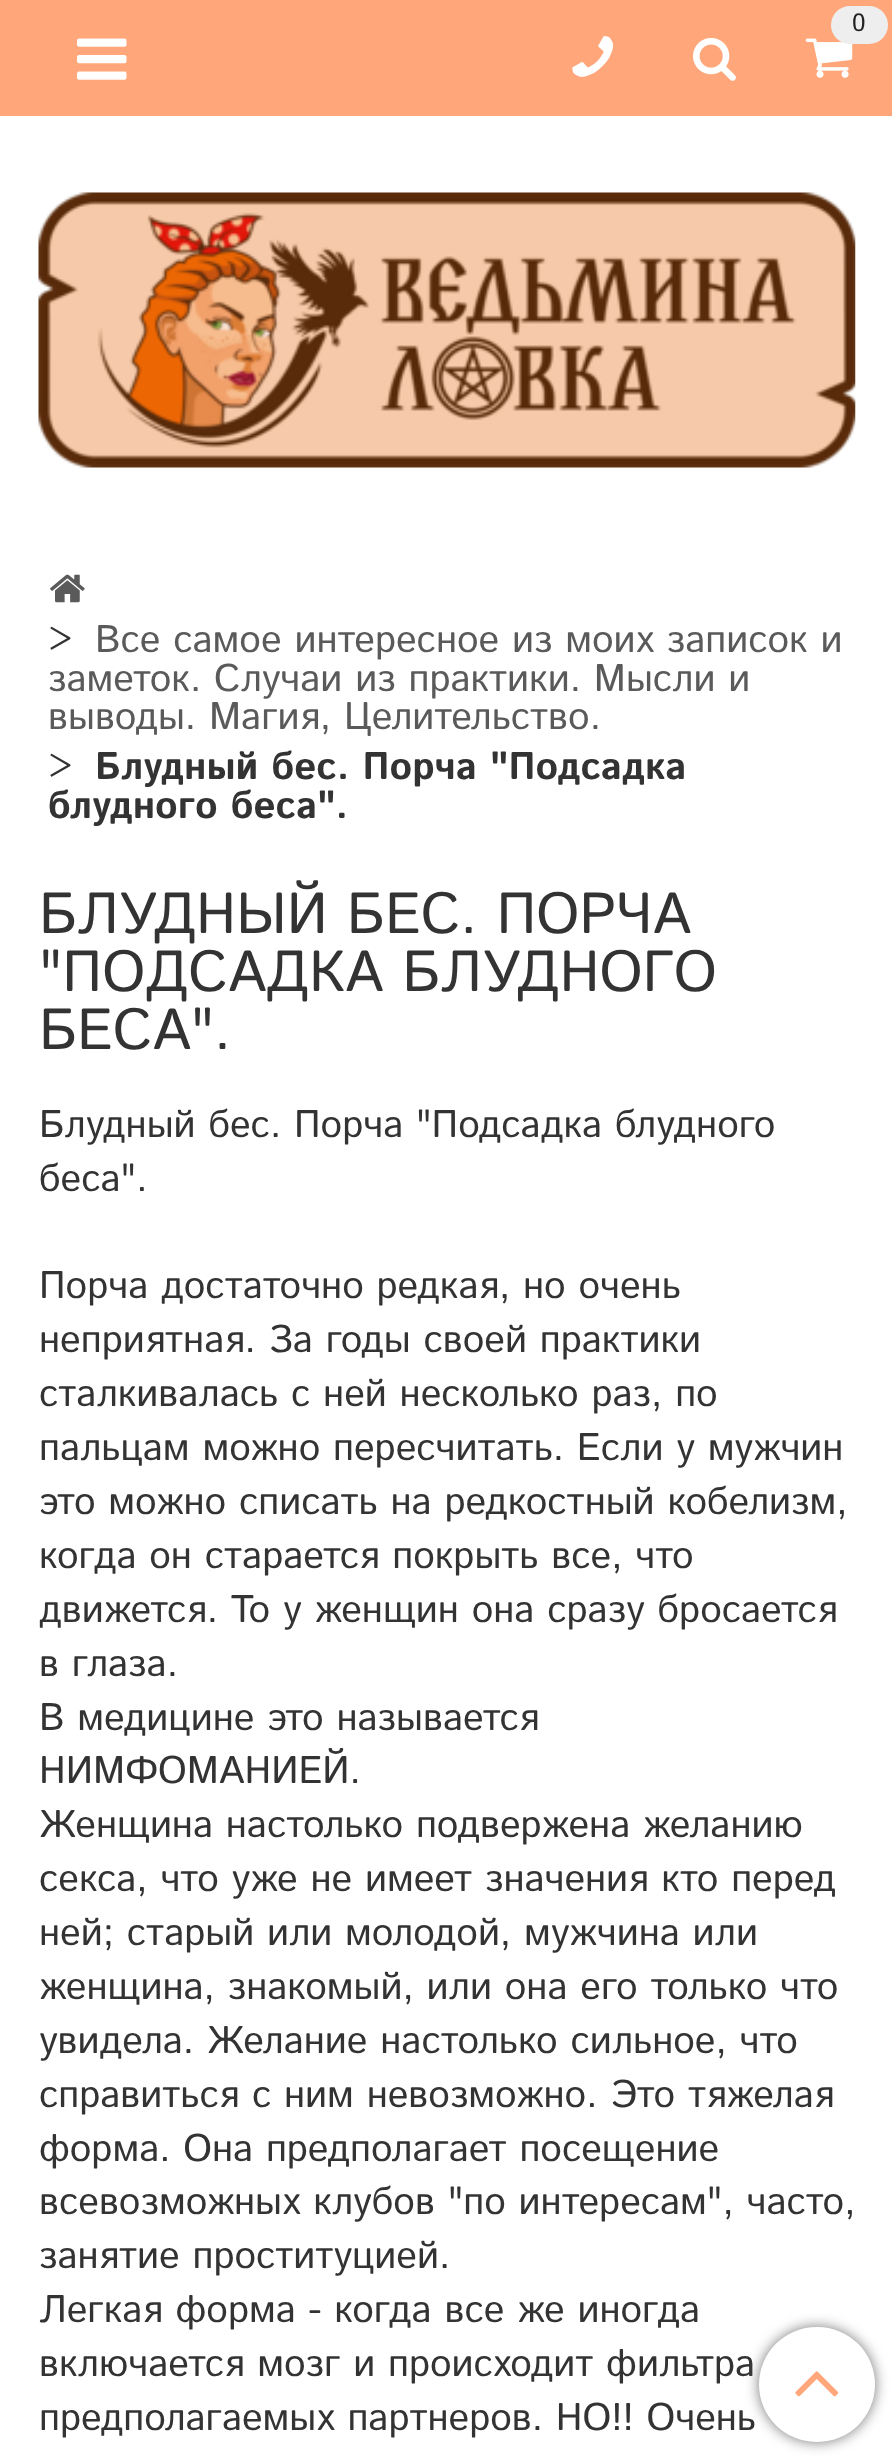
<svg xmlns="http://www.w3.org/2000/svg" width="892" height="2460">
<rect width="100%" height="100%" fill="#fff"/>
<rect width="892" height="116" fill="#ffa77a"/>
<image x="805" y="38" width="48" height="40" href="media/1.png"/>
<rect x="831" y="6" width="57" height="38" rx="19" fill="#eee"/>
<text x="852" y="31" style="font-family:Istok Web;font-size:25px;fill:#222">0</text>
<image x="572" y="36" width="42" height="41" href="media/2.png"/>
<image x="693" y="37" width="43" height="44" href="media/3.png"/>
<image x="77" y="38" width="50" height="42" href="media/4.png"/>
<image x="38" y="192" width="818" height="276" href="media/5.png"/>
<image x="50" y="574" width="35" height="29" href="media/6.png"/>
<text x="48" y="652" style="font-family:Istok Web;font-size:38.5px;fill:#333">&gt;</text>
<text x="95" y="652" style="font-family:Istok Web;font-size:38.5px;fill:#5a5a5a">Все самое интересное из моих записок и</text>
<text x="48" y="691" style="font-family:Istok Web;font-size:38.5px;fill:#5a5a5a">заметок. Случаи из практики. Мысли и</text>
<text x="48" y="729" style="font-family:Istok Web;font-size:38.5px;fill:#5a5a5a">выводы. Магия, Целительство.</text>
<text x="48" y="779" style="font-family:Istok Web;font-size:38.5px;fill:#333">&gt;</text>
<text x="95" y="779" style="font-family:Istok Web;font-size:38.5px;font-weight:bold;fill:#333">Блудный бес. Порча "Подсадка</text>
<text x="48" y="818" style="font-family:Istok Web;font-size:38.5px;font-weight:bold;fill:#333">блудного беса".</text>
<text x="39" y="933" style="font-family:Istok Web;font-size:57.75px;fill:#333">БЛУДНЫЙ БЕС. ПОРЧА</text>
<text x="39" y="991" style="font-family:Istok Web;font-size:57.75px;fill:#333">"ПОДСАДКА БЛУДНОГО</text>
<text x="39" y="1049" style="font-family:Istok Web;font-size:57.75px;fill:#333">БЕСА".</text>
<text x="39" y="1137" style="font-family:Istok Web;font-size:38.5px;fill:#333">Блудный бес. Порча "Подсадка блудного</text>
<text x="39" y="1191" style="font-family:Istok Web;font-size:38.5px;fill:#333">беса".</text>
<text x="39" y="1298" style="font-family:Istok Web;font-size:38.5px;fill:#333">Порча достаточно редкая, но очень</text>
<text x="39" y="1352" style="font-family:Istok Web;font-size:38.5px;fill:#333">неприятная. За годы своей практики</text>
<text x="39" y="1406" style="font-family:Istok Web;font-size:38.5px;fill:#333">сталкивалась с ней несколько раз, по</text>
<text x="39" y="1460" style="font-family:Istok Web;font-size:38.5px;fill:#333">пальцам можно пересчитать. Если у мужчин</text>
<text x="39" y="1514" style="font-family:Istok Web;font-size:38.5px;fill:#333">это можно списать на редкостный кобелизм,</text>
<text x="39" y="1568" style="font-family:Istok Web;font-size:38.5px;fill:#333">когда он старается покрыть все, что</text>
<text x="39" y="1622" style="font-family:Istok Web;font-size:38.5px;fill:#333">движется. То у женщин она сразу бросается</text>
<text x="39" y="1676" style="font-family:Istok Web;font-size:38.5px;fill:#333">в глаза.</text>
<text x="39" y="1730" style="font-family:Istok Web;font-size:38.5px;fill:#333">В медицине это называется</text>
<text x="39" y="1783" style="font-family:Istok Web;font-size:38.5px;fill:#333">НИМФОМАНИЕЙ.</text>
<text x="39" y="1837" style="font-family:Istok Web;font-size:38.5px;fill:#333">Женщина настолько подвержена желанию</text>
<text x="39" y="1891" style="font-family:Istok Web;font-size:38.5px;fill:#333">секса, что уже не имеет значения кто перед</text>
<text x="39" y="1945" style="font-family:Istok Web;font-size:38.5px;fill:#333">ней; старый или молодой, мужчина или</text>
<text x="39" y="1999" style="font-family:Istok Web;font-size:38.5px;fill:#333">женщина, знакомый, или она его только что</text>
<text x="39" y="2053" style="font-family:Istok Web;font-size:38.5px;fill:#333">увидела. Желание настолько сильное, что</text>
<text x="39" y="2107" style="font-family:Istok Web;font-size:38.5px;fill:#333">справиться с ним невозможно. Это тяжелая</text>
<text x="39" y="2161" style="font-family:Istok Web;font-size:38.5px;fill:#333">форма. Она предполагает посещение</text>
<text x="39" y="2214" style="font-family:Istok Web;font-size:38.5px;fill:#333">всевозможных клубов "по интересам", часто,</text>
<text x="39" y="2268" style="font-family:Istok Web;font-size:38.5px;fill:#333">занятие проституцией.</text>
<text x="39" y="2322" style="font-family:Istok Web;font-size:38.5px;fill:#333">Легкая форма - когда все же иногда</text>
<text x="39" y="2376" style="font-family:Istok Web;font-size:38.5px;fill:#333">включается мозг и происходит фильтра</text>
<text x="39" y="2430" style="font-family:Istok Web;font-size:38.5px;fill:#333">предполагаемых партнеров. НО!! Очень</text>
<rect x="759" y="2327" width="116" height="115" rx="57.5" fill="#777" filter="blur(7px)"/>
<rect x="759" y="2327" width="116" height="115" rx="57.5" fill="#fff"/>
<image x="795" y="2371" width="44" height="26" href="media/7.png"/>
</svg>
